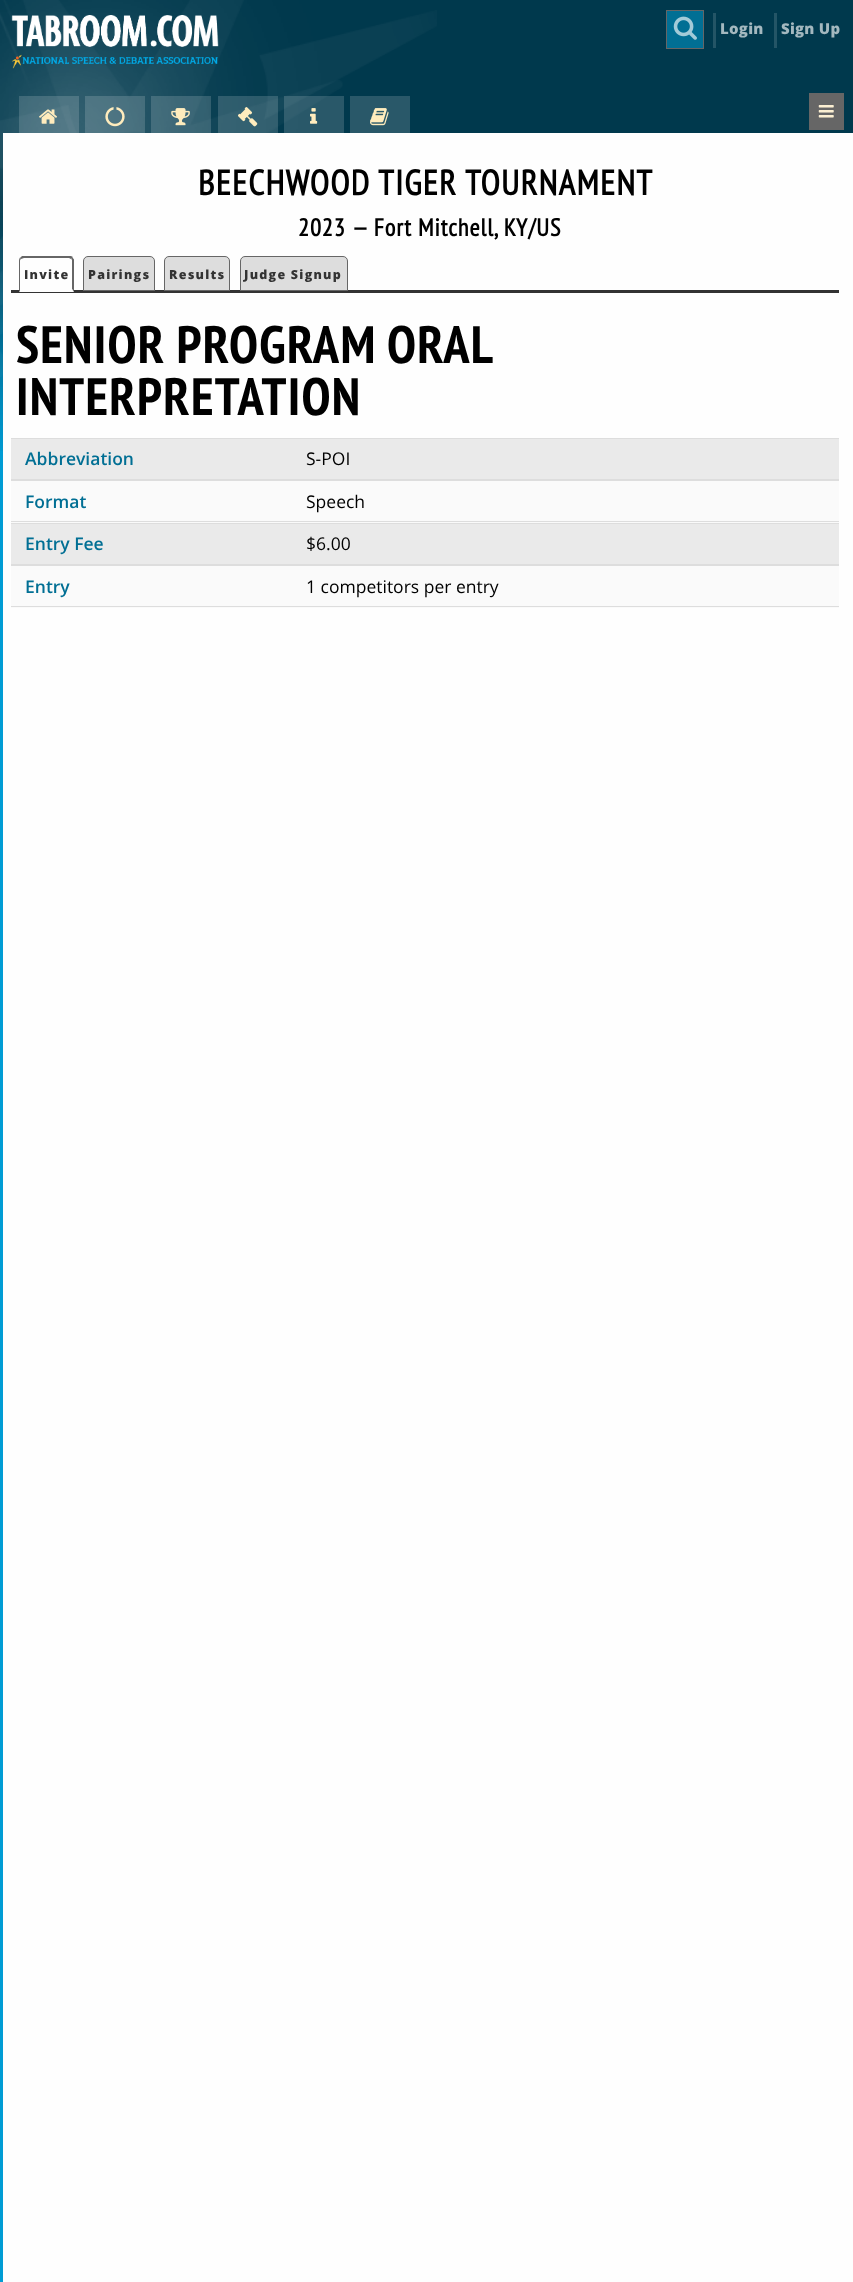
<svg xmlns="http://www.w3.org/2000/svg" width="853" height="2282">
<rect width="100%" height="100%" fill="#009cd4"/>
<image x="0" y="0" width="853" height="451" href="media/1.png"/>
<image x="0" y="0" width="437" height="377" href="media/2.png"/>
<image x="11" y="15" width="208" height="54" href="media/3.png"/>
<rect x="666.5" y="10.5" width="37" height="38" fill="#016f94" stroke="#666"/>
<image x="673" y="16" width="24" height="24" href="media/4.png"/>
<rect x="713" y="13" width="3" height="35" fill="#245566"/>
<text x="720" y="34" style="font-family:Open Sans;font-size:15px;font-weight:800;letter-spacing:0.25px;fill:#a3b8bf">Login</text>
<rect x="774" y="13" width="3" height="35" fill="#245566"/>
<text x="781" y="34" style="font-family:Open Sans;font-size:15px;font-weight:800;letter-spacing:0.25px;fill:#a3b8bf">Sign Up</text>
<rect x="19" y="96" width="60" height="37" fill="#ffffff29"/>
<image x="39" y="109" width="18" height="15" href="media/5.png"/>
<rect x="85" y="96" width="60" height="37" fill="#ffffff29"/>
<image x="105" y="107" width="20" height="20" href="media/6.png"/>
<rect x="151" y="96" width="60" height="37" fill="#ffffff29"/>
<image x="171" y="108" width="19" height="18" href="media/7.png"/>
<rect x="218" y="96" width="60" height="37" fill="#ffffff29"/>
<image x="238" y="107" width="20" height="20" href="media/8.png"/>
<rect x="284" y="96" width="60" height="37" fill="#ffffff29"/>
<image x="310" y="108" width="8" height="16" href="media/9.png"/>
<rect x="350" y="96" width="60" height="37" fill="#ffffff29"/>
<image x="370" y="108" width="19" height="18" href="media/10.png"/>
<rect x="809" y="93" width="35" height="37" fill="#666"/>
<image x="818" y="105" width="16" height="13" href="media/11.png"/>
<rect x="3" y="133" width="850" height="2149" fill="#fefefe"/>
<text x="198" y="195" style="font-family:PT Sans Narrow;font-size:35px;font-weight:bold;letter-spacing:1.25px;fill:#000">BEECHWOOD TIGER TOURNAMENT</text>
<text x="298" y="236" style="font-family:PT Sans Narrow;font-size:24.5px;font-weight:bold;letter-spacing:0.9px;fill:#000">2023</text>
<text x="352" y="236" style="font-family:PT Sans Narrow;font-size:24.5px;font-weight:bold;letter-spacing:0.9px;fill:#000">— Fort Mitchell, KY/US</text>
<rect x="11" y="290" width="828" height="3" fill="#333"/>
<path d="M24 258l-3 1l-1-1l2-2h49l2 1l-2 2l-2-1z" fill="#666"/>
<path d="M74 292h-.5l-1.5-3v-28c0-1 0-2-1-2l1.5-1.5l1.5 2z" fill="#666"/>
<path d="M74 292h-55l1-2h52v-1z" fill="#fefefe"/>
<path d="M19 292l1-2v-29c0-1 .5-2 1-2l-1-1.5c-.5 1-1 2-1 3.5z" fill="#666"/>
<text x="24" y="279" style="font-family:Open Sans;font-size:12.5px;font-weight:800;letter-spacing:1.25px;fill:#333">Invite</text>
<path d="M88 256.5h62c2.5 0 4.5 2 4.5 4.5v29.5h-71v-29.5c0-2.5 2-4.5 4.5-4.5z" fill="#ddd" stroke="#666"/>
<text x="88" y="279" style="font-family:Open Sans;font-size:12.5px;font-weight:800;letter-spacing:1.25px;fill:#333">Pairings</text>
<path d="M169 256.5h56c2.5 0 4.5 2 4.5 4.5v29.5h-65v-29.5c0-2.5 2-4.5 4.5-4.5z" fill="#ddd" stroke="#666"/>
<text x="169" y="279" style="font-family:Open Sans;font-size:12.5px;font-weight:800;letter-spacing:1.25px;fill:#333">Results</text>
<path d="M245 256.5h98c2.5 0 4.5 2 4.5 4.5v29.5h-107v-29.5c0-2.5 2-4.5 4.5-4.5z" fill="#ddd" stroke="#666"/>
<text x="244" y="279" style="font-family:Open Sans;font-size:12.5px;font-weight:800;letter-spacing:1.25px;fill:#333">Judge Signup</text>
<text x="16" y="363" word-spacing="-1" style="font-family:'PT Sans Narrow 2';font-size:52.5px;font-weight:bold;letter-spacing:1.25px;fill:#000">SENIOR PROGRAM ORAL</text>
<text x="16" y="415" style="font-family:'PT Sans Narrow 2';font-size:52.5px;font-weight:bold;letter-spacing:1.25px;fill:#000">INTERPRETATION</text>
<rect x="11" y="439" width="828" height="40" fill="#eaeaea"/>
<rect x="11" y="438" width="828" height="1" fill="#ddd"/>
<rect x="11" y="479" width="828" height="2" fill="#ddd"/>
<text x="25" y="465" style="font-family:Open Sans;font-size:17.5px;font-weight:600;fill:#016f94">Abbreviation</text>
<text x="306" y="465" style="font-family:Open Sans;font-size:17.5px;fill:#000">S-POI</text>
<rect x="11" y="481" width="828" height="42" fill="#fafafa"/>
<rect x="11" y="521" width="828" height="1" fill="#ddd"/>
<text x="25" y="508" style="font-family:Open Sans;font-size:17.5px;font-weight:600;fill:#016f94">Format</text>
<text x="306" y="508" style="font-family:Open Sans;font-size:17.5px;fill:#000">Speech</text>
<rect x="11" y="524" width="828" height="40" fill="#eaeaea"/>
<rect x="11" y="523" width="828" height="1" fill="#ddd"/>
<rect x="11" y="564" width="828" height="2" fill="#ddd"/>
<text x="25" y="550" style="font-family:Open Sans;font-size:17.5px;font-weight:600;fill:#016f94">Entry Fee</text>
<text x="306" y="550" style="font-family:Open Sans;font-size:17.5px;fill:#000">$6.00</text>
<rect x="11" y="566" width="828" height="42" fill="#fafafa"/>
<rect x="11" y="606" width="828" height="1" fill="#ddd"/>
<text x="25" y="593" style="font-family:Open Sans;font-size:17.5px;font-weight:600;fill:#016f94">Entry</text>
<text x="306" y="593" style="font-family:Open Sans;font-size:17.5px;fill:#000">1 competitors per entry</text>
</svg>
